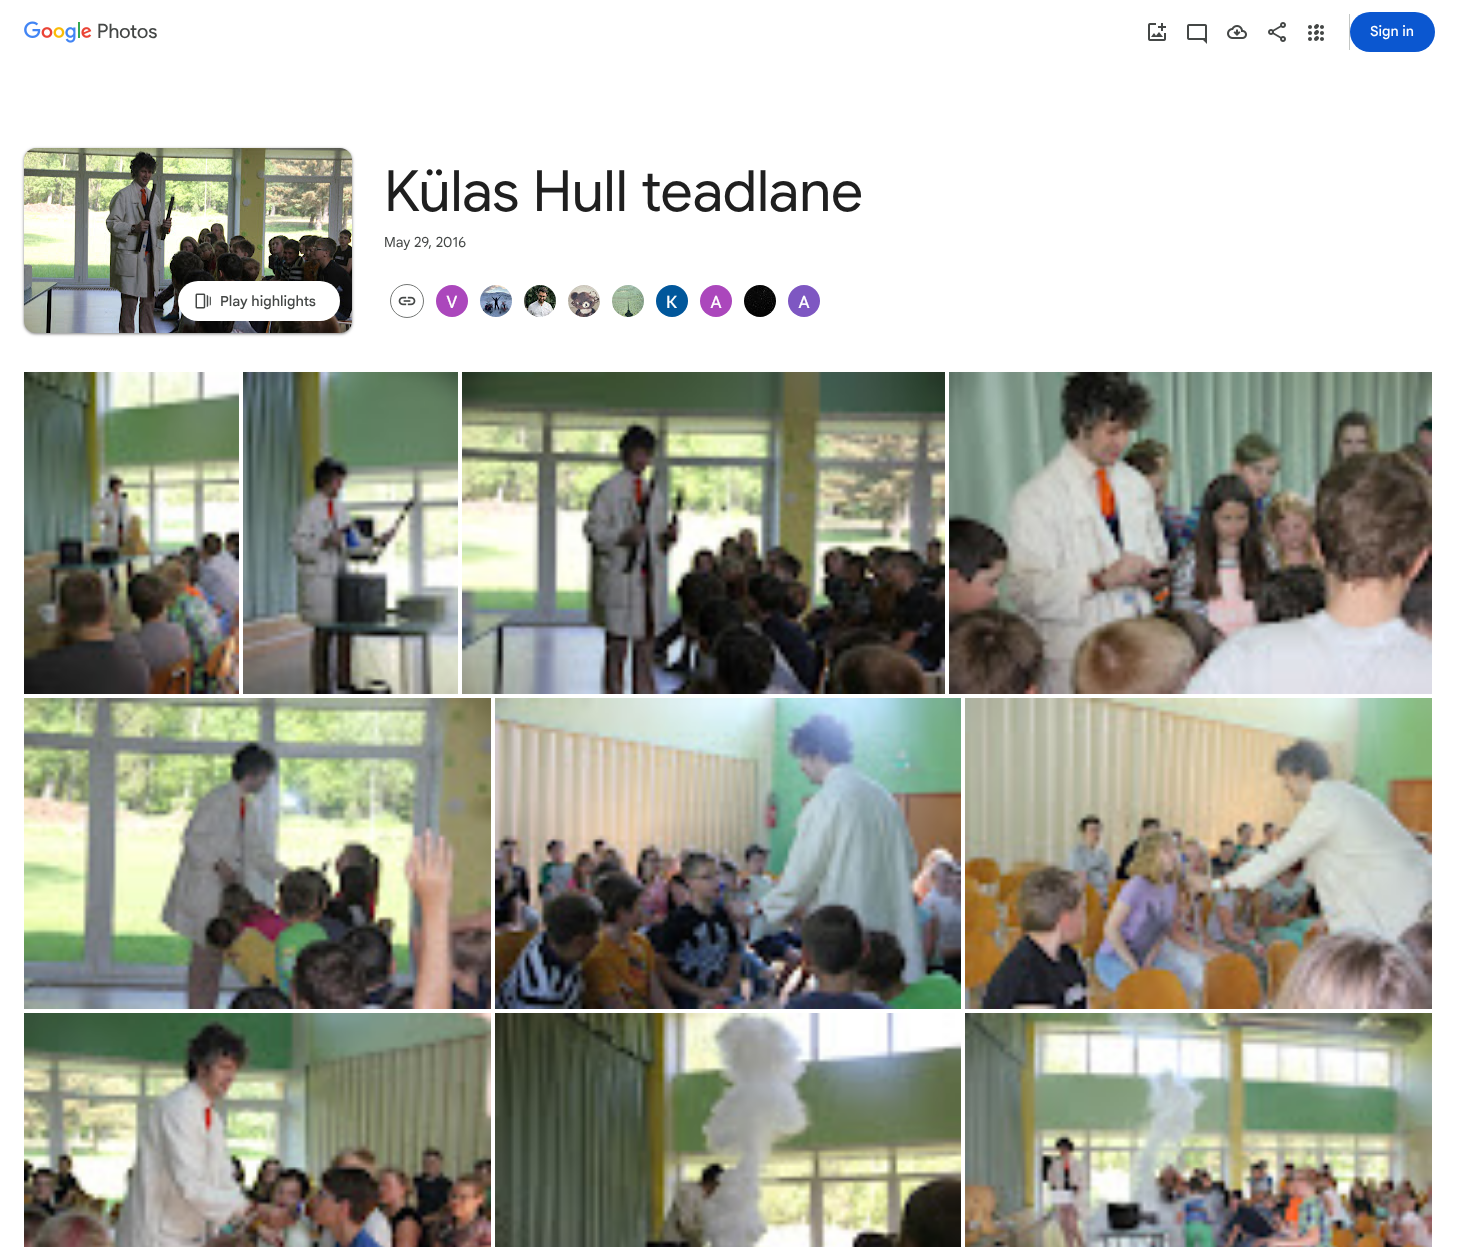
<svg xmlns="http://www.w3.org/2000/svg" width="1471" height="1247">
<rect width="100%" height="100%" fill="#fff"/>
<image x="24" y="21" width="68" height="22" href="media/1.png"/>
<text x="97" y="38" style="font-family:Product Sans;font-size:20px;fill:#444746">Photos</text>
<image x="1148" y="23" width="18" height="18" href="media/2.png"/>
<image x="1187" y="24" width="20" height="20" href="media/3.png"/>
<image x="1227" y="25" width="20" height="14" href="media/4.png"/>
<image x="1268" y="22" width="18" height="20" href="media/5.png"/>
<image x="1315" y="24" width="4" height="16" href="media/6.png"/>
<rect x="1349" y="14" width="1" height="36" fill="#c4c7c5"/>
<text x="384" y="211" style="font-family:Google Sans;font-size:57px;fill:#1f1f1f">Külas Hull teadlane</text>
<text x="384" y="247" style="font-family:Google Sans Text;font-size:14px;fill:#444746">May 29, 2016</text>
<circle cx="407" cy="301" r="16.5" fill="none" stroke="#747775"/>
<image x="398" y="296" width="18" height="10" href="media/7.png"/>
<image x="436" y="285" width="32" height="32" href="media/8.png"/>
<image x="480" y="285" width="32" height="32" href="media/9.png"/>
<image x="524" y="285" width="32" height="32" href="media/10.png"/>
<image x="568" y="285" width="32" height="32" href="media/11.png"/>
<image x="612" y="285" width="32" height="32" href="media/12.png"/>
<image x="656" y="285" width="32" height="32" href="media/13.png"/>
<image x="700" y="285" width="32" height="32" href="media/14.png"/>
<image x="744" y="285" width="32" height="32" href="media/15.png"/>
<image x="788" y="285" width="32" height="32" href="media/16.png"/>
<rect x="23" y="148" width="330" height="187" rx="13" fill="#00000026" filter="blur(1.5px)"/>
<rect x="24" y="149" width="328" height="185" rx="12" fill="#0000004d" filter="blur(1px)"/>
<image x="24" y="148" width="328" height="185" href="media/17.png"/>
<rect x="178" y="281" width="162" height="40" rx="20" fill="#fff"/>
<image x="195" y="293" width="16" height="16" href="media/18.png"/>
<text x="220" y="306" style="font-family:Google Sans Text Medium;font-size:14px;font-weight:500;fill:#444746">Play highlights</text>
<image x="24" y="372" width="215" height="322" href="media/19.png"/>
<image x="243" y="372" width="215" height="322" href="media/20.png"/>
<image x="462" y="372" width="483" height="322" href="media/21.png"/>
<image x="949" y="372" width="483" height="322" href="media/22.png"/>
<image x="24" y="698" width="467" height="311" href="media/23.png"/>
<image x="495" y="698" width="466" height="311" href="media/24.png"/>
<image x="965" y="698" width="467" height="311" href="media/25.png"/>
<image x="24" y="1013" width="467" height="234" href="media/26.png"/>
<image x="495" y="1013" width="466" height="234" href="media/27.png"/>
<image x="965" y="1013" width="467" height="234" href="media/28.png"/>
<image x="1308" y="25" width="16" height="16" href="media/29.png"/>
<rect x="1350" y="12" width="85" height="40" rx="20" fill="#0b57d0"/>
<text x="1370" y="36" style="font-family:Google Sans Text Medium;font-size:14px;font-weight:500;fill:#fff">Sign in</text>
</svg>
